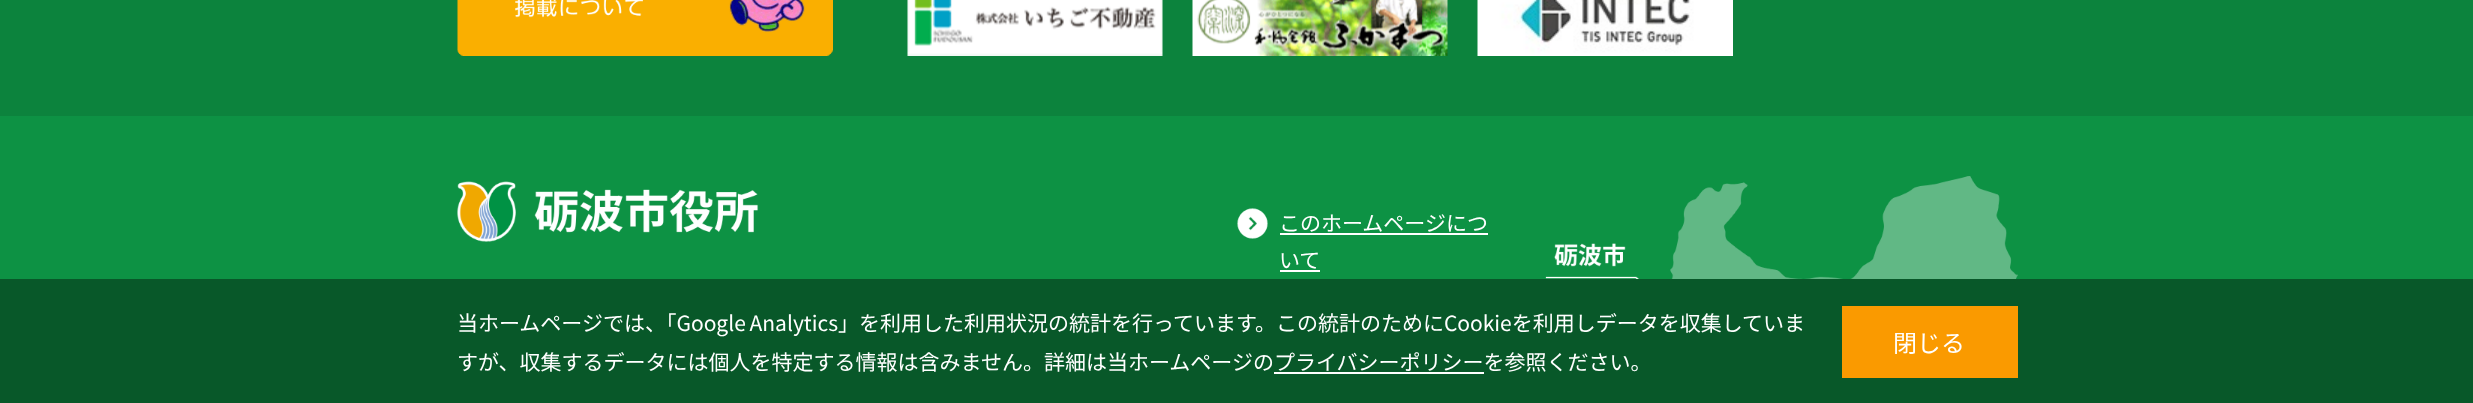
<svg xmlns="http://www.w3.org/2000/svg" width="2473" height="403">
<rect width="100%" height="100%" fill="#0d9244"/>
<rect width="2473" height="116" fill="#0c833d"/>
<image x="457" y="0" width="376" height="56" href="media/1.png"/>
<image x="907" y="0" width="256" height="56" href="media/2.png"/>
<image x="1192" y="0" width="256" height="56" href="media/3.png"/>
<image x="1477" y="0" width="256" height="56" href="media/4.png"/>
<image x="457" y="181" width="302" height="61" href="media/5.png"/>
<image x="1237" y="208" width="31" height="31" href="media/6.png"/>
<text x="1279" y="231" style="font-family:Noto Sans JP;font-size:21px;fill:#fff">このホームページにつ</text>
<rect x="1280" y="233" width="208" height="2" fill="#fff"/>
<text x="1279" y="268" style="font-family:Noto Sans JP;font-size:21px;fill:#fff">いて</text>
<rect x="1280" y="270" width="40" height="2" fill="#fff"/>
<image x="1545" y="176" width="473" height="103" href="media/7.png"/>
<rect y="279" width="2473" height="124" fill="#085829"/>
<text x="457" y="331" word-spacing="-1" style="font-family:Noto Sans JP;font-size:21px;fill:#fff">当ホームページでは、「Google Analytics」を利用した利用状況の統計を行っています。この統計のためにCookieを利用しデータを収集していま</text>
<text x="457" y="370" style="font-family:Noto Sans JP;font-size:21px;fill:#fff">すが、収集するデータには個人を特定する情報は含みません。詳細は当ホームページのプライバシーポリシーを参照ください。</text>
<rect x="1274" y="372" width="210" height="2" fill="#fff"/>
<rect x="1842" y="306" width="176" height="72" fill="#fa9a00"/>
<text x="1893" y="352" style="font-family:Noto Sans JP;font-size:24px;fill:#fff">閉じる</text>
</svg>
